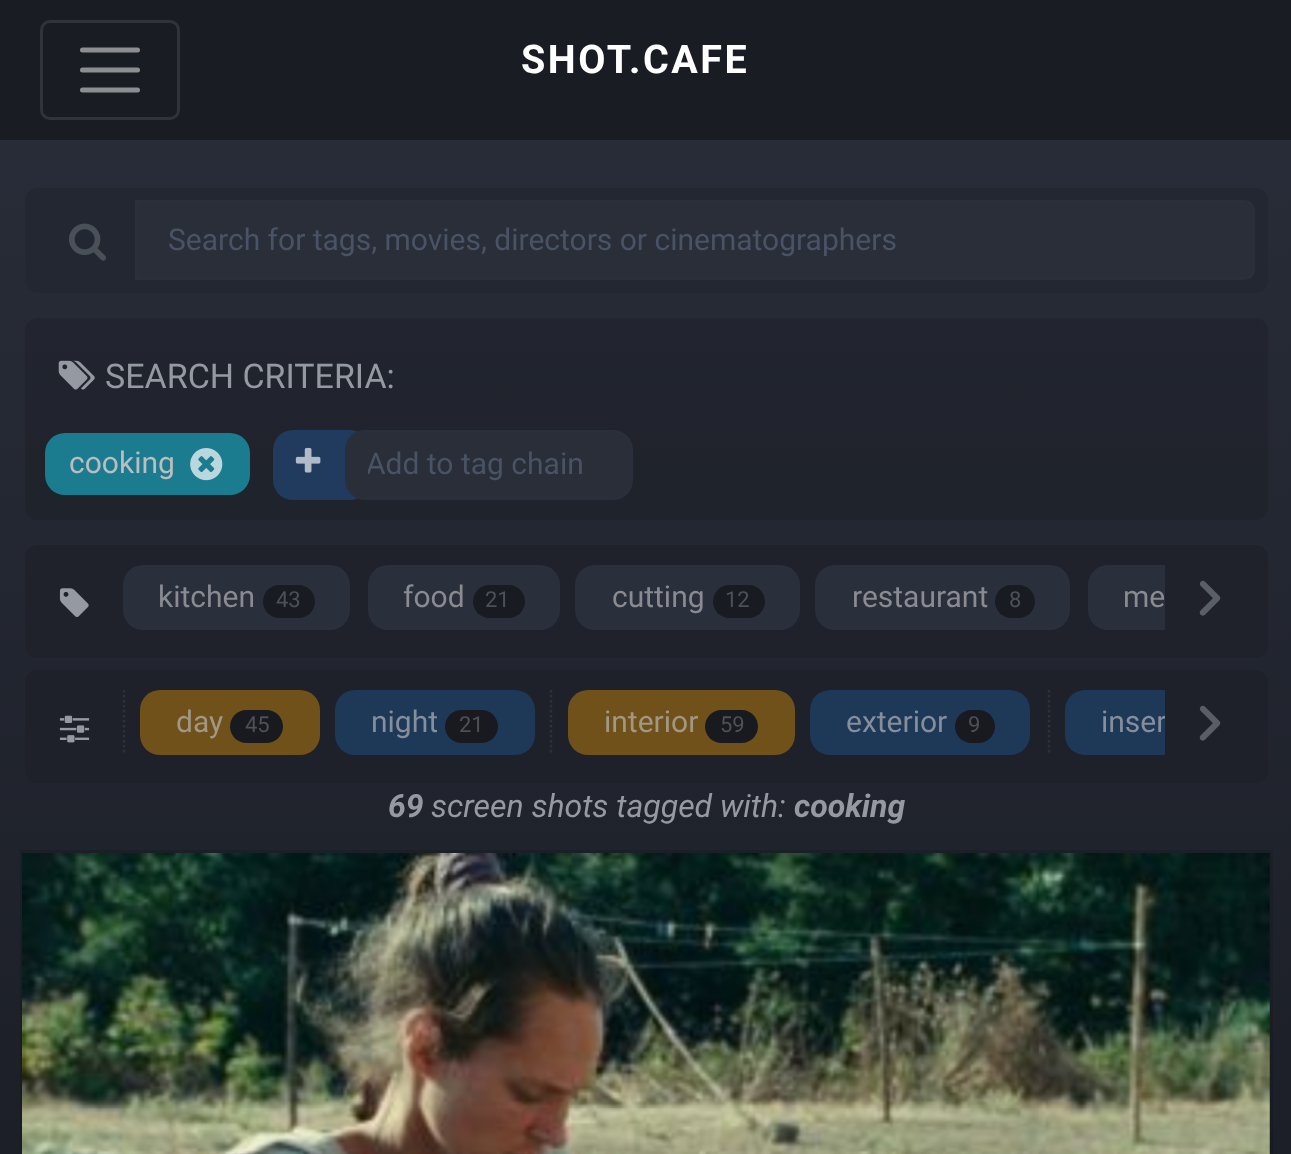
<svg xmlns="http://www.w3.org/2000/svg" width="1291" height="1154">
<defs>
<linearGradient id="g1" gradientUnits="userSpaceOnUse" x1="646" y1="0" x2="646" y2="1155"><stop offset="0" stop-color="#292e3a"/><stop offset="1" stop-color="#1c1f27"/></linearGradient>
<clipPath id="clip1"><rect x="368" y="448" width="242" height="35"/></clipPath>
<clipPath id="clip2"><rect x="115" y="683" width="1050" height="80"/></clipPath>
</defs>
<rect width="100%" height="100%" fill="#fff"/>
<rect y="140" width="1291" height="1014" fill="url(#g1)"/>
<rect width="1291" height="140" fill="#1a1c24"/>
<rect x="41.5" y="21.5" width="137" height="97" rx="8.5" fill="none" stroke="#31333a" stroke-width="3"/>
<path d="M82.5 50h55m-55 20h55m-55 20h55" fill="none" stroke="#8d8e92" stroke-width="5" stroke-linecap="round"/>
<text x="521" y="73" style="font-family:Roboto;font-size:39.5px;font-weight:bold;letter-spacing:2.5px;fill:#fff">SHOT.CAFE</text>
<rect x="25" y="188" width="1243" height="105" rx="13" fill="#232731"/>
<image x="69" y="223" width="37" height="38" href="media/1.png"/>
<path d="M136.5 201.5h1108.5c4.5 0 8.5 4 8.5 8.5v60c0 4.5-4 8.5-8.5 8.5h-1108.5z" fill="#292e39" stroke="#2a2f3c" stroke-width="3"/>
<text x="168" y="250" style="font-family:Roboto;font-size:30px;fill:#4a5365">Search for tags, movies, directors or cinematographers</text>
<rect x="25" y="318" width="1243" height="202" rx="13" fill="#0300001a"/>
<image x="58" y="360" width="37" height="30" href="media/2.png"/>
<text x="105" y="388" style="font-family:Roboto;font-size:34px;fill:#959aa2">SEARCH CRITERIA:</text>
<rect x="45" y="433" width="205" height="62" rx="20" fill="#1a7c8e"/>
<text x="69" y="473" style="font-family:Roboto;font-size:30px;fill:#bcbdc0">cooking</text>
<image x="190" y="448" width="33" height="33" href="media/3.png"/>
<rect x="273" y="430" width="97" height="70" rx="20" fill="#213b5e"/>
<image x="295" y="447" width="26" height="26" href="media/4.png"/>
<rect x="346.5" y="431.5" width="285" height="67" rx="18.5" fill="#292e39" stroke="#2a2f3c" stroke-width="3"/>
<g clip-path="url(#clip1)">
<text x="366" y="474" style="font-family:Roboto;font-size:30px;fill:#4a5365">Add to tag chain</text>
</g>
<rect x="25" y="545" width="1243" height="113" rx="13" fill="#1f222b"/>
<image x="59" y="588" width="30" height="29" href="media/5.png"/>
<rect x="123" y="565" width="227" height="65" rx="20" fill="#2a2f3c"/>
<text x="158" y="607" style="font-family:Roboto;font-size:30px;fill:#898b91">kitchen</text>
<rect x="263" y="585" width="52" height="33" rx="16.5" fill="#181b22"/>
<text x="276" y="607" style="font-family:Roboto;font-size:22px;fill:#4e5058">43</text>
<rect x="368" y="565" width="192" height="65" rx="20" fill="#2a2f3c"/>
<text x="403" y="607" style="font-family:Roboto;font-size:30px;fill:#898b91">food</text>
<rect x="473" y="585" width="52" height="33" rx="16.5" fill="#181b22"/>
<text x="485" y="607" style="font-family:Roboto;font-size:22px;fill:#4e5058">21</text>
<rect x="575" y="565" width="225" height="65" rx="20" fill="#2a2f3c"/>
<text x="612" y="607" style="font-family:Roboto;font-size:30px;fill:#898b91">cutting</text>
<rect x="713" y="585" width="52" height="33" rx="16.5" fill="#181b22"/>
<text x="725" y="607" style="font-family:Roboto;font-size:22px;fill:#4e5058">12</text>
<rect x="815" y="565" width="255" height="65" rx="20" fill="#2a2f3c"/>
<text x="852" y="607" style="font-family:Roboto;font-size:30px;fill:#898b91">restaurant</text>
<rect x="995" y="585" width="40" height="33" rx="16.5" fill="#181b22"/>
<text x="1009" y="607" style="font-family:Roboto;font-size:22px;fill:#4e5058">8</text>
<path d="M1108 565h57v65h-57c-11 0-20-9-20-20v-25c0-11 9-20 20-20z" fill="#2a2f3c"/>
<text x="1123" y="607" style="font-family:Roboto;font-size:30px;fill:#898b91">me</text>
<image x="1199" y="580" width="22" height="36" href="media/6.png"/>
<rect x="25" y="670" width="1243" height="113" rx="13" fill="#1e2129"/>
<image x="59" y="715" width="31" height="28" href="media/7.png"/>
<path d="M124 690v65" fill="none" stroke="#2d3139" stroke-width="2.5" stroke-dasharray="2.5 2.5"/>
<rect x="140" y="690" width="180" height="65" rx="20" fill="#70511a"/>
<text x="176" y="732" style="font-family:Roboto;font-size:30px;fill:#a19785">day</text>
<rect x="230" y="710" width="53" height="33" rx="16.5" fill="#181a20"/>
<text x="245" y="732" style="font-family:Roboto;font-size:22px;fill:#4e5058">45</text>
<rect x="335" y="690" width="200" height="65" rx="20" fill="#1e3857"/>
<text x="371" y="732" style="font-family:Roboto;font-size:30px;fill:#858e9b">night</text>
<rect x="445" y="710" width="53" height="33" rx="16.5" fill="#181a20"/>
<text x="459" y="732" style="font-family:Roboto;font-size:22px;fill:#4e5058">21</text>
<path d="M551 690v65" fill="none" stroke="#2d3139" stroke-width="2.5" stroke-dasharray="2.5 2.5"/>
<rect x="568" y="690" width="227" height="65" rx="20" fill="#70511a"/>
<text x="604" y="732" style="font-family:Roboto;font-size:30px;fill:#a19785">interior</text>
<rect x="705" y="710" width="53" height="33" rx="16.5" fill="#181a20"/>
<text x="720" y="732" style="font-family:Roboto;font-size:22px;fill:#4e5058">59</text>
<rect x="810" y="690" width="220" height="65" rx="20" fill="#1e3857"/>
<text x="846" y="732" style="font-family:Roboto;font-size:30px;fill:#858e9b">exterior</text>
<rect x="955" y="710" width="40" height="33" rx="16.5" fill="#181a20"/>
<text x="968" y="732" style="font-family:Roboto;font-size:22px;fill:#4e5058">9</text>
<path d="M1049 690v65" fill="none" stroke="#2d3139" stroke-width="2.5" stroke-dasharray="2.5 2.5"/>
<path d="M1085 690h80v65h-80c-11 0-20-9-20-20v-25c0-11 9-20 20-20z" fill="#1e3857"/>
<g clip-path="url(#clip2)">
<text x="1101" y="732" style="font-family:Roboto;font-size:30px;fill:#858e9b">inser</text>
</g>
<image x="1199" y="705" width="22" height="36" href="media/8.png"/>
<text x="388" y="817" style="font-family:Roboto;font-size:32px;font-weight:bold;font-style:italic;fill:#959aa2">69</text>
<text x="431" y="817" style="font-family:Roboto;font-size:32px;font-style:italic;fill:#959aa2">screen shots tagged with:</text>
<text x="794" y="817" style="font-family:Roboto;font-size:32px;font-weight:bold;font-style:italic;fill:#959aa2">cooking</text>
<rect x="21.5" y="851.5" width="1250" height="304" fill="none" stroke="#0000001a" stroke-width="3"/>
<image x="22" y="853" width="1248" height="301" href="media/9.png"/>
</svg>
